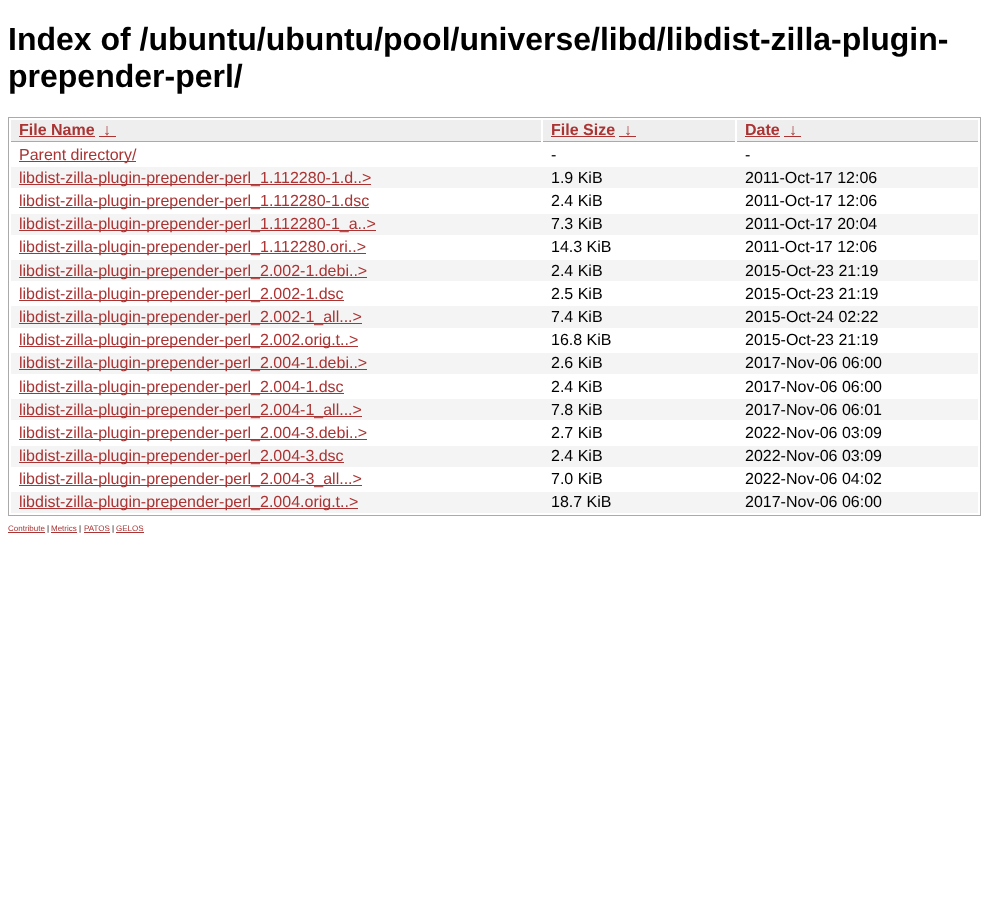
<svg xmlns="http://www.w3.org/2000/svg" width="989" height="898">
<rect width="100%" height="100%" fill="#fff"/>
<text x="8" y="50" style="font-family:Liberation Sans;font-size:32px;font-weight:bold;fill:#000">Index of /ubuntu/ubuntu/pool/universe/libd/libdist-zilla-plugin-</text>
<text x="8" y="87" style="font-family:Liberation Sans;font-size:32px;font-weight:bold;fill:#000">prepender-perl/</text>
<rect x="8.5" y="117.5" width="972" height="398" fill="none" stroke="#aaa"/>
<rect x="11" y="120" width="530" height="21" fill="#eee"/>
<rect x="11" y="141" width="530" height="1" fill="#aaa"/>
<text x="19" y="135" style="font-family:Liberation Sans;font-size:16px;font-weight:bold;fill:#a33">File Name</text>
<rect x="19" y="136" width="76" height="1" fill="#a33"/>
<text x="103" y="135" style="font-family:Liberation Sans;font-size:16px;font-weight:bold;fill:#a33">↓</text>
<rect x="99" y="136" width="17" height="1" fill="#a33"/>
<rect x="543" y="120" width="192" height="21" fill="#eee"/>
<rect x="543" y="141" width="192" height="1" fill="#aaa"/>
<text x="551" y="135" style="font-family:Liberation Sans;font-size:16px;font-weight:bold;fill:#a33">File Size</text>
<rect x="551" y="136" width="64" height="1" fill="#a33"/>
<text x="624" y="135" style="font-family:Liberation Sans;font-size:16px;font-weight:bold;fill:#a33">↓</text>
<rect x="619" y="136" width="17" height="1" fill="#a33"/>
<rect x="737" y="120" width="241" height="21" fill="#eee"/>
<rect x="737" y="141" width="241" height="1" fill="#aaa"/>
<text x="745" y="135" style="font-family:Liberation Sans;font-size:16px;font-weight:bold;fill:#a33">Date</text>
<rect x="745" y="136" width="35" height="1" fill="#a33"/>
<text x="789" y="135" style="font-family:Liberation Sans;font-size:16px;font-weight:bold;fill:#a33">↓</text>
<rect x="784" y="136" width="17" height="1" fill="#a33"/>
<rect x="19" y="161" width="117" height="1" fill="#a33"/>
<text x="19" y="160" style="font-family:Liberation Sans;font-size:16px;fill:#a33">Parent directory/</text>
<text x="551" y="160" style="font-family:Liberation Sans;font-size:16px;fill:#000">-</text>
<text x="745" y="160" style="font-family:Liberation Sans;font-size:16px;fill:#000">-</text>
<rect x="11" y="167" width="967" height="21" fill="#f4f4f4"/>
<rect x="19" y="184" width="352" height="1" fill="#a33"/>
<text x="19" y="183" style="font-family:Liberation Sans;font-size:16px;fill:#a33">libdist-zilla-plugin-prepender-perl_1.112280-1.d..&gt;</text>
<text x="551" y="183" style="font-family:Liberation Sans;font-size:16px;fill:#000">1.9 KiB</text>
<text x="745" y="183" style="font-family:Liberation Sans;font-size:16px;fill:#000">2011-Oct-17 12:06</text>
<rect x="19" y="207" width="350" height="1" fill="#a33"/>
<text x="19" y="206" style="font-family:Liberation Sans;font-size:16px;fill:#a33">libdist-zilla-plugin-prepender-perl_1.112280-1.dsc</text>
<text x="551" y="206" style="font-family:Liberation Sans;font-size:16px;fill:#000">2.4 KiB</text>
<text x="745" y="206" style="font-family:Liberation Sans;font-size:16px;fill:#000">2011-Oct-17 12:06</text>
<rect x="11" y="214" width="967" height="21" fill="#f4f4f4"/>
<rect x="19" y="230" width="357" height="1" fill="#a33"/>
<text x="19" y="229" style="font-family:Liberation Sans;font-size:16px;fill:#a33">libdist-zilla-plugin-prepender-perl_1.112280-1_a..&gt;</text>
<text x="551" y="229" style="font-family:Liberation Sans;font-size:16px;fill:#000">7.3 KiB</text>
<text x="745" y="229" style="font-family:Liberation Sans;font-size:16px;fill:#000">2011-Oct-17 20:04</text>
<rect x="19" y="253" width="347" height="1" fill="#a33"/>
<text x="19" y="252" style="font-family:Liberation Sans;font-size:16px;fill:#a33">libdist-zilla-plugin-prepender-perl_1.112280.ori..&gt;</text>
<text x="551" y="252" style="font-family:Liberation Sans;font-size:16px;fill:#000">14.3 KiB</text>
<text x="745" y="252" style="font-family:Liberation Sans;font-size:16px;fill:#000">2011-Oct-17 12:06</text>
<rect x="11" y="260" width="967" height="21" fill="#f4f4f4"/>
<rect x="19" y="277" width="348" height="1" fill="#a33"/>
<text x="19" y="276" style="font-family:Liberation Sans;font-size:16px;fill:#a33">libdist-zilla-plugin-prepender-perl_2.002-1.debi..&gt;</text>
<text x="551" y="276" style="font-family:Liberation Sans;font-size:16px;fill:#000">2.4 KiB</text>
<text x="745" y="276" style="font-family:Liberation Sans;font-size:16px;fill:#000">2015-Oct-23 21:19</text>
<rect x="19" y="300" width="325" height="1" fill="#a33"/>
<text x="19" y="299" style="font-family:Liberation Sans;font-size:16px;fill:#a33">libdist-zilla-plugin-prepender-perl_2.002-1.dsc</text>
<text x="551" y="299" style="font-family:Liberation Sans;font-size:16px;fill:#000">2.5 KiB</text>
<text x="745" y="299" style="font-family:Liberation Sans;font-size:16px;fill:#000">2015-Oct-23 21:19</text>
<rect x="11" y="306" width="967" height="22" fill="#f4f4f4"/>
<rect x="19" y="323" width="343" height="1" fill="#a33"/>
<text x="19" y="322" style="font-family:Liberation Sans;font-size:16px;fill:#a33">libdist-zilla-plugin-prepender-perl_2.002-1_all...&gt;</text>
<text x="551" y="322" style="font-family:Liberation Sans;font-size:16px;fill:#000">7.4 KiB</text>
<text x="745" y="322" style="font-family:Liberation Sans;font-size:16px;fill:#000">2015-Oct-24 02:22</text>
<rect x="19" y="346" width="339" height="1" fill="#a33"/>
<text x="19" y="345" style="font-family:Liberation Sans;font-size:16px;fill:#a33">libdist-zilla-plugin-prepender-perl_2.002.orig.t..&gt;</text>
<text x="551" y="345" style="font-family:Liberation Sans;font-size:16px;fill:#000">16.8 KiB</text>
<text x="745" y="345" style="font-family:Liberation Sans;font-size:16px;fill:#000">2015-Oct-23 21:19</text>
<rect x="11" y="353" width="967" height="21" fill="#f4f4f4"/>
<rect x="19" y="369" width="348" height="1" fill="#a33"/>
<text x="19" y="368" style="font-family:Liberation Sans;font-size:16px;fill:#a33">libdist-zilla-plugin-prepender-perl_2.004-1.debi..&gt;</text>
<text x="551" y="368" style="font-family:Liberation Sans;font-size:16px;fill:#000">2.6 KiB</text>
<text x="745" y="368" style="font-family:Liberation Sans;font-size:16px;fill:#000">2017-Nov-06 06:00</text>
<rect x="19" y="393" width="325" height="1" fill="#a33"/>
<text x="19" y="392" style="font-family:Liberation Sans;font-size:16px;fill:#a33">libdist-zilla-plugin-prepender-perl_2.004-1.dsc</text>
<text x="551" y="392" style="font-family:Liberation Sans;font-size:16px;fill:#000">2.4 KiB</text>
<text x="745" y="392" style="font-family:Liberation Sans;font-size:16px;fill:#000">2017-Nov-06 06:00</text>
<rect x="11" y="399" width="967" height="21" fill="#f4f4f4"/>
<rect x="19" y="416" width="343" height="1" fill="#a33"/>
<text x="19" y="415" style="font-family:Liberation Sans;font-size:16px;fill:#a33">libdist-zilla-plugin-prepender-perl_2.004-1_all...&gt;</text>
<text x="551" y="415" style="font-family:Liberation Sans;font-size:16px;fill:#000">7.8 KiB</text>
<text x="745" y="415" style="font-family:Liberation Sans;font-size:16px;fill:#000">2017-Nov-06 06:01</text>
<rect x="19" y="439" width="348" height="1" fill="#a33"/>
<text x="19" y="438" style="font-family:Liberation Sans;font-size:16px;fill:#a33">libdist-zilla-plugin-prepender-perl_2.004-3.debi..&gt;</text>
<text x="551" y="438" style="font-family:Liberation Sans;font-size:16px;fill:#000">2.7 KiB</text>
<text x="745" y="438" style="font-family:Liberation Sans;font-size:16px;fill:#000">2022-Nov-06 03:09</text>
<rect x="11" y="446" width="967" height="21" fill="#f4f4f4"/>
<rect x="19" y="462" width="325" height="1" fill="#a33"/>
<text x="19" y="461" style="font-family:Liberation Sans;font-size:16px;fill:#a33">libdist-zilla-plugin-prepender-perl_2.004-3.dsc</text>
<text x="551" y="461" style="font-family:Liberation Sans;font-size:16px;fill:#000">2.4 KiB</text>
<text x="745" y="461" style="font-family:Liberation Sans;font-size:16px;fill:#000">2022-Nov-06 03:09</text>
<rect x="19" y="485" width="343" height="1" fill="#a33"/>
<text x="19" y="484" style="font-family:Liberation Sans;font-size:16px;fill:#a33">libdist-zilla-plugin-prepender-perl_2.004-3_all...&gt;</text>
<text x="551" y="484" style="font-family:Liberation Sans;font-size:16px;fill:#000">7.0 KiB</text>
<text x="745" y="484" style="font-family:Liberation Sans;font-size:16px;fill:#000">2022-Nov-06 04:02</text>
<rect x="11" y="492" width="967" height="21" fill="#f4f4f4"/>
<rect x="19" y="508" width="339" height="1" fill="#a33"/>
<text x="19" y="507" style="font-family:Liberation Sans;font-size:16px;fill:#a33">libdist-zilla-plugin-prepender-perl_2.004.orig.t..&gt;</text>
<text x="551" y="507" style="font-family:Liberation Sans;font-size:16px;fill:#000">18.7 KiB</text>
<text x="745" y="507" style="font-family:Liberation Sans;font-size:16px;fill:#000">2017-Nov-06 06:00</text>
<text x="8" y="531" style="font-family:Liberation Sans;font-size:8px;fill:#a33">Contribute</text>
<rect x="8" y="532" width="37" height="1" fill="#a33"/>
<text x="47" y="531" style="font-family:Liberation Sans;font-size:8px;fill:#000">|</text>
<text x="51" y="531" style="font-family:Liberation Sans;font-size:8px;fill:#a33">Metrics</text>
<rect x="51" y="532" width="26" height="1" fill="#a33"/>
<text x="79" y="531" style="font-family:Liberation Sans;font-size:8px;fill:#000">|</text>
<text x="84" y="531" style="font-family:Liberation Sans;font-size:8px;fill:#a33">PATOS</text>
<rect x="84" y="532" width="26" height="1" fill="#a33"/>
<text x="112" y="531" style="font-family:Liberation Sans;font-size:8px;fill:#000">|</text>
<text x="116" y="531" style="font-family:Liberation Sans;font-size:8px;fill:#a33">GELOS</text>
<rect x="116" y="532" width="28" height="1" fill="#a33"/>
</svg>
